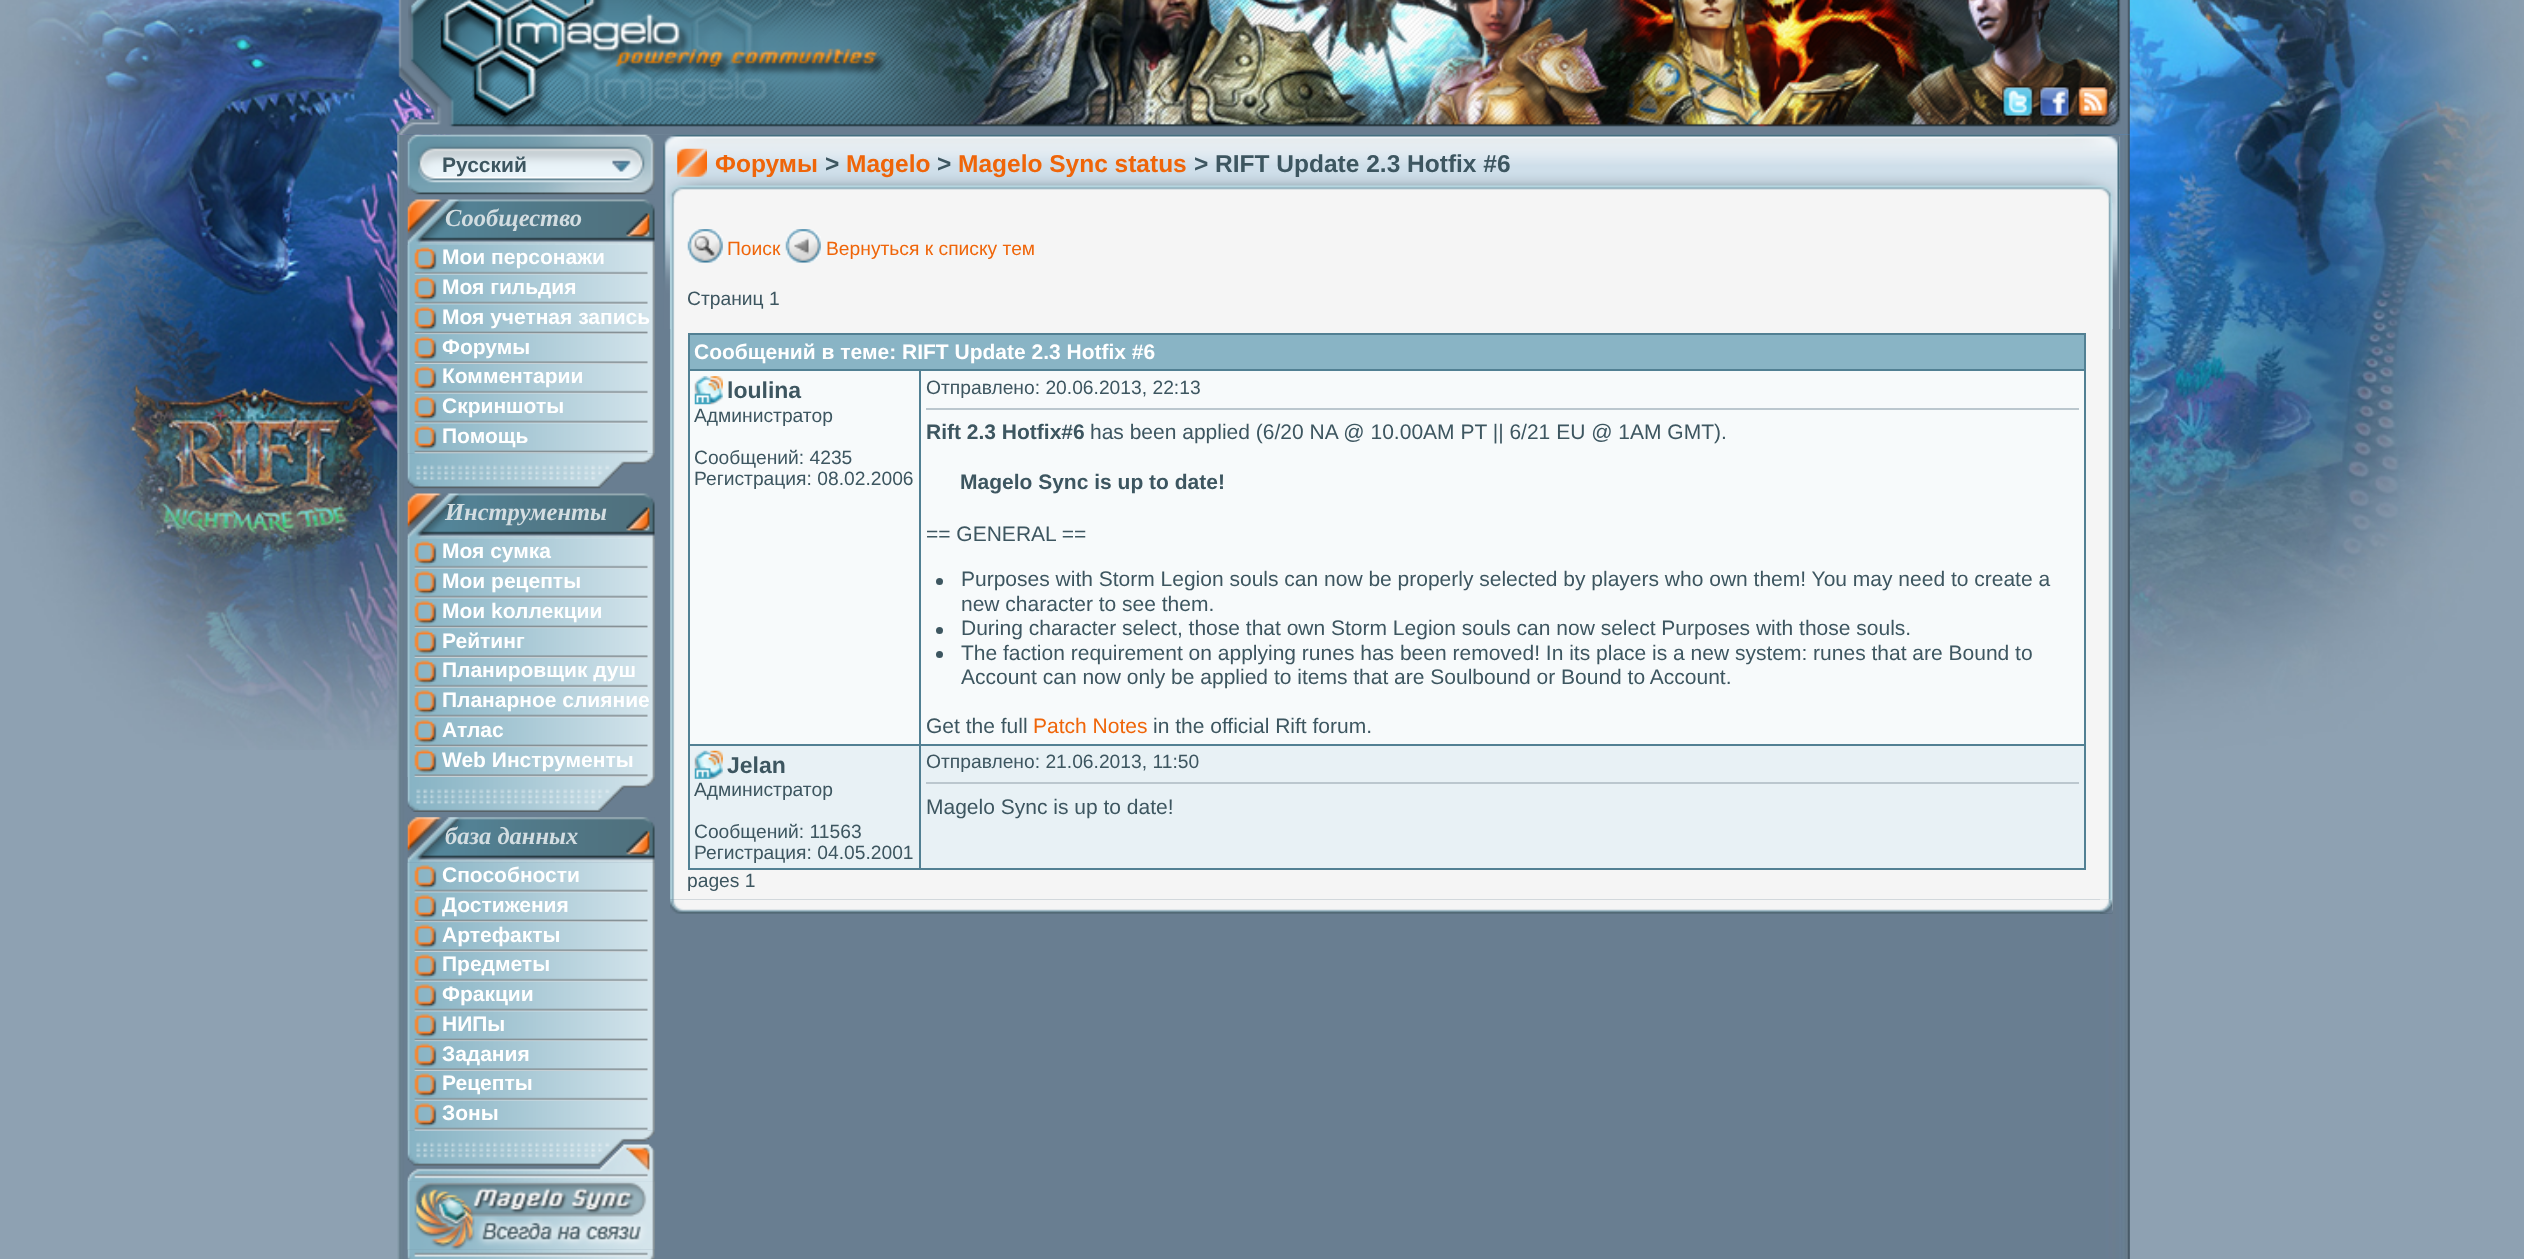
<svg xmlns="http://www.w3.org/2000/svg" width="2524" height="1259">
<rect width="100%" height="100%" fill="#8ea1b2"/>
<image x="0" y="0" width="2524" height="750" href="media/1.png"/>
<image x="397" y="0" width="1733" height="135" href="media/2.png"/>
<image x="408" y="0" width="1713" height="127" href="media/3.png"/>
<image x="440" y="0" width="446" height="133" href="media/4.png"/>
<image x="2002" y="85" width="32" height="33" href="media/5.png"/>
<image x="2038" y="85" width="33" height="33" href="media/6.png"/>
<image x="2077" y="85" width="32" height="33" href="media/7.png"/>
<image x="397" y="134" width="1733" height="1125" href="media/8.png"/>
<image x="407" y="134" width="248" height="61" href="media/9.png"/>
<text x="442" y="172" style="font-family:Liberation Sans;font-size:21px;font-weight:bold;fill:#3d5660">Русский</text>
<image x="407" y="199" width="248" height="46" href="media/10.png"/>
<text x="445" y="226" style="font-family:Liberation Serif;font-size:24.5px;font-weight:bold;font-style:italic;fill:#d3dde1">Сообщество</text>
<image x="407" y="453" width="248" height="36" href="media/17.png"/>
<image x="407" y="245" width="248" height="209" href="media/11.png"/>
<image x="407" y="245" width="248" height="30" href="media/12.png"/>
<text x="442" y="264" style="font-family:Liberation Sans;font-size:21px;font-weight:bold;fill:#fff">Мои персонажи</text>
<image x="407" y="274" width="248" height="31" href="media/13.png"/>
<text x="442" y="294" style="font-family:Liberation Sans;font-size:21px;font-weight:bold;fill:#fff">Моя гильдия</text>
<image x="407" y="304" width="248" height="31" href="media/14.png"/>
<text x="442" y="324" style="font-family:Liberation Sans;font-size:21px;font-weight:bold;fill:#fff">Моя учетная запись</text>
<image x="407" y="334" width="248" height="30" href="media/15.png"/>
<text x="442" y="354" style="font-family:Liberation Sans;font-size:21px;font-weight:bold;fill:#fff">Форумы</text>
<image x="407" y="364" width="248" height="30" href="media/12.png"/>
<text x="442" y="383" style="font-family:Liberation Sans;font-size:21px;font-weight:bold;fill:#fff">Комментарии</text>
<image x="407" y="393" width="248" height="31" href="media/13.png"/>
<text x="442" y="413" style="font-family:Liberation Sans;font-size:21px;font-weight:bold;fill:#fff">Скриншоты</text>
<image x="407" y="423" width="248" height="31" href="media/16.png"/>
<text x="442" y="443" style="font-family:Liberation Sans;font-size:21px;font-weight:bold;fill:#fff">Помощь</text>
<image x="407" y="493" width="248" height="46" href="media/10.png"/>
<text x="445" y="520" style="font-family:Liberation Serif;font-size:24.5px;font-weight:bold;font-style:italic;fill:#d3dde1">Инструменты</text>
<image x="407" y="539" width="248" height="238" href="media/18.png"/>
<image x="407" y="539" width="248" height="30" href="media/12.png"/>
<text x="442" y="558" style="font-family:Liberation Sans;font-size:21px;font-weight:bold;fill:#fff">Моя сумка</text>
<image x="407" y="568" width="248" height="31" href="media/13.png"/>
<text x="442" y="588" style="font-family:Liberation Sans;font-size:21px;font-weight:bold;fill:#fff">Мои рецепты</text>
<image x="407" y="598" width="248" height="31" href="media/14.png"/>
<text x="442" y="618" style="font-family:Liberation Sans;font-size:21px;font-weight:bold;fill:#fff">Мои kоллекции</text>
<image x="407" y="628" width="248" height="30" href="media/15.png"/>
<text x="442" y="648" style="font-family:Liberation Sans;font-size:21px;font-weight:bold;fill:#fff">Рейтинг</text>
<image x="407" y="658" width="248" height="30" href="media/12.png"/>
<text x="442" y="677" style="font-family:Liberation Sans;font-size:21px;font-weight:bold;fill:#fff">Планировщик душ</text>
<image x="407" y="687" width="248" height="31" href="media/13.png"/>
<text x="442" y="707" style="font-family:Liberation Sans;font-size:21px;font-weight:bold;fill:#fff">Планарное слияние</text>
<image x="407" y="717" width="248" height="31" href="media/14.png"/>
<text x="442" y="737" style="font-family:Liberation Sans;font-size:21px;font-weight:bold;fill:#fff">Атлас</text>
<image x="407" y="747" width="248" height="30" href="media/15.png"/>
<text x="442" y="767" style="font-family:Liberation Sans;font-size:21px;font-weight:bold;fill:#fff">Web Инструменты</text>
<image x="407" y="777" width="248" height="35" href="media/19.png"/>
<image x="407" y="817" width="248" height="46" href="media/20.png"/>
<text x="445" y="844" style="font-family:Liberation Serif;font-size:24.5px;font-weight:bold;font-style:italic;fill:#d3dde1">база данных</text>
<image x="407" y="1130" width="248" height="36" href="media/24.png"/>
<image x="407" y="862" width="248" height="269" href="media/21.png"/>
<image x="407" y="862" width="248" height="31" href="media/22.png"/>
<text x="442" y="882" style="font-family:Liberation Sans;font-size:21px;font-weight:bold;fill:#fff">Способности</text>
<image x="407" y="892" width="248" height="31" href="media/14.png"/>
<text x="442" y="912" style="font-family:Liberation Sans;font-size:21px;font-weight:bold;fill:#fff">Достижения</text>
<image x="407" y="922" width="248" height="30" href="media/15.png"/>
<text x="442" y="942" style="font-family:Liberation Sans;font-size:21px;font-weight:bold;fill:#fff">Артефакты</text>
<image x="407" y="952" width="248" height="30" href="media/12.png"/>
<text x="442" y="971" style="font-family:Liberation Sans;font-size:21px;font-weight:bold;fill:#fff">Предметы</text>
<image x="407" y="981" width="248" height="31" href="media/13.png"/>
<text x="442" y="1001" style="font-family:Liberation Sans;font-size:21px;font-weight:bold;fill:#fff">Фракции</text>
<image x="407" y="1011" width="248" height="31" href="media/14.png"/>
<text x="442" y="1031" style="font-family:Liberation Sans;font-size:21px;font-weight:bold;fill:#fff">НИПы</text>
<image x="407" y="1041" width="248" height="30" href="media/15.png"/>
<text x="442" y="1061" style="font-family:Liberation Sans;font-size:21px;font-weight:bold;fill:#fff">Задания</text>
<image x="407" y="1071" width="248" height="30" href="media/12.png"/>
<text x="442" y="1090" style="font-family:Liberation Sans;font-size:21px;font-weight:bold;fill:#fff">Рецепты</text>
<image x="407" y="1100" width="248" height="31" href="media/23.png"/>
<text x="442" y="1120" style="font-family:Liberation Sans;font-size:21px;font-weight:bold;fill:#fff">Зоны</text>
<image x="407" y="1144" width="248" height="38" href="media/25.png"/>
<image x="407" y="1249" width="248" height="10" href="media/28.png"/>
<image x="407" y="1181" width="248" height="69" href="media/26.png"/>
<image x="407" y="1181" width="248" height="69" href="media/27.png"/>
<image x="663" y="134" width="1457" height="195" href="media/29.png"/>
<image x="2047" y="134" width="73" height="195" href="media/30.png"/>
<image x="677" y="148" width="30" height="29" href="media/31.png"/>
<text x="715" y="172" style="font-family:Liberation Sans;font-size:24.5px;font-weight:bold;fill:#ef6509">Форумы</text>
<text x="825" y="172" style="font-family:Liberation Sans;font-size:24.5px;font-weight:bold;fill:#3d5660">&gt;</text>
<text x="846" y="172" style="font-family:Liberation Sans;font-size:24.5px;font-weight:bold;fill:#ef6509">Magelo</text>
<text x="937" y="172" style="font-family:Liberation Sans;font-size:24.5px;font-weight:bold;fill:#3d5660">&gt;</text>
<text x="958" y="172" style="font-family:Liberation Sans;font-size:24.5px;font-weight:bold;fill:#ef6509">Magelo Sync status</text>
<text x="1194" y="172" style="font-family:Liberation Sans;font-size:24.5px;font-weight:bold;fill:#3d5660">&gt; RIFT Update 2.3 Hotfix #6</text>
<image x="670" y="203" width="1443" height="697" href="media/32.png"/>
<image x="670" y="899" width="1443" height="15" href="media/38.png"/>
<image x="2100" y="899" width="13" height="15" href="media/39.png"/>
<image x="2108" y="203" width="5" height="697" href="media/33.png"/>
<image x="687" y="229" width="36" height="34" href="media/34.png"/>
<text x="727" y="255" style="font-family:Liberation Sans;font-size:19.25px;fill:#ef6509">Поиск</text>
<image x="785" y="229" width="36" height="34" href="media/35.png"/>
<text x="826" y="255" style="font-family:Liberation Sans;font-size:19.25px;fill:#ef6509">Вернуться к списку тем</text>
<text x="687" y="305" style="font-family:Liberation Sans;font-size:19.25px;fill:#3d5660">Страниц 1</text>
<rect x="688" y="333" width="1398" height="2" fill="#528093"/>
<rect x="2084" y="333" width="2" height="537" fill="#528093"/>
<rect x="688" y="868" width="1398" height="2" fill="#528093"/>
<rect x="688" y="333" width="2" height="537" fill="#528093"/>
<rect x="688" y="369" width="1398" height="2" fill="#528093"/>
<rect x="690" y="335" width="1394" height="34" fill="#89b4c5"/>
<text x="694" y="359" style="font-family:Liberation Sans;font-size:21px;font-weight:bold;fill:#fff">Сообщений в теме: RIFT Update 2.3 Hotfix #6</text>
<rect x="690" y="371" width="1394" height="373" fill="#f7fafb"/>
<image x="694" y="376" width="29" height="29" href="media/36.png"/>
<text x="727" y="398" style="font-family:Liberation Sans;font-size:23px;font-weight:bold;fill:#3d5660">loulina</text>
<text x="694" y="422" style="font-family:Liberation Sans;font-size:19.25px;fill:#3d5660">Администратор</text>
<text x="694" y="464" style="font-family:Liberation Sans;font-size:19.25px;fill:#3d5660">Сообщений: 4235</text>
<text x="694" y="485" style="font-family:Liberation Sans;font-size:19.25px;fill:#3d5660">Регистрация: 08.02.2006</text>
<rect x="919" y="744" width="1167" height="2" fill="#528093"/>
<rect x="690" y="746" width="1394" height="122" fill="#e8f1f5"/>
<rect x="919" y="744" width="2" height="126" fill="#528093"/>
<rect x="688" y="744" width="233" height="2" fill="#528093"/>
<rect x="919" y="369" width="2" height="377" fill="#528093"/>
<text x="926" y="394" style="font-family:Liberation Sans;font-size:19.25px;fill:#3d5660">Отправлено: 20.06.2013, 22:13</text>
<rect x="926" y="408" width="1153" height="2" fill="#bbc7ce"/>
<text x="926" y="439" style="font-family:Liberation Sans;font-size:21px;font-weight:bold;fill:#3d5660">Rift 2.3 Hotfix#6</text>
<text x="1090" y="439" style="font-family:Liberation Sans;font-size:21px;fill:#3d5660">has been applied (6/20 NA @ 10.00AM PT || 6/21 EU @ 1AM GMT).</text>
<text x="960" y="489" style="font-family:Liberation Sans;font-size:21px;font-weight:bold;fill:#3d5660">Magelo Sync is up to date!</text>
<text x="926" y="541" style="font-family:Liberation Sans;font-size:21px;fill:#3d5660">== GENERAL ==</text>
<circle cx="939.5" cy="581.5" r="3.5" fill="#3d5660"/>
<text x="961" y="586" style="font-family:Liberation Sans;font-size:21px;fill:#3d5660">Purposes with Storm Legion souls can now be properly selected by players who own them! You may need to create a</text>
<text x="961" y="611" style="font-family:Liberation Sans;font-size:21px;fill:#3d5660">new character to see them.</text>
<circle cx="939.5" cy="630.5" r="3.5" fill="#3d5660"/>
<text x="961" y="635" style="font-family:Liberation Sans;font-size:21px;fill:#3d5660">During character select, those that own Storm Legion souls can now select Purposes with those souls.</text>
<circle cx="939.5" cy="654.5" r="3.5" fill="#3d5660"/>
<text x="961" y="660" style="font-family:Liberation Sans;font-size:21px;fill:#3d5660">The faction requirement on applying runes has been removed! In its place is a new system: runes that are Bound to</text>
<text x="961" y="684" style="font-family:Liberation Sans;font-size:21px;fill:#3d5660">Account can now only be applied to items that are Soulbound or Bound to Account.</text>
<text x="926" y="733" style="font-family:Liberation Sans;font-size:21px;fill:#3d5660">Get the full</text>
<text x="1033" y="733" style="font-family:Liberation Sans;font-size:21px;fill:#ef6509">Patch Notes</text>
<text x="1153" y="733" style="font-family:Liberation Sans;font-size:21px;fill:#3d5660">in the official Rift forum.</text>
<image x="694" y="750" width="29" height="29" href="media/37.png"/>
<text x="727" y="773" style="font-family:Liberation Sans;font-size:23px;font-weight:bold;fill:#3d5660">Jelan</text>
<text x="694" y="796" style="font-family:Liberation Sans;font-size:19.25px;fill:#3d5660">Администратор</text>
<text x="694" y="838" style="font-family:Liberation Sans;font-size:19.25px;fill:#3d5660">Сообщений: 11563</text>
<text x="694" y="859" style="font-family:Liberation Sans;font-size:19.25px;fill:#3d5660">Регистрация: 04.05.2001</text>
<text x="926" y="768" style="font-family:Liberation Sans;font-size:19.25px;fill:#3d5660">Отправлено: 21.06.2013, 11:50</text>
<rect x="926" y="782" width="1153" height="2" fill="#bbc7ce"/>
<text x="926" y="814" style="font-family:Liberation Sans;font-size:21px;fill:#3d5660">Magelo Sync is up to date!</text>
<text x="687" y="887" style="font-family:Liberation Sans;font-size:19.25px;fill:#3d5660">pages 1</text>
</svg>
